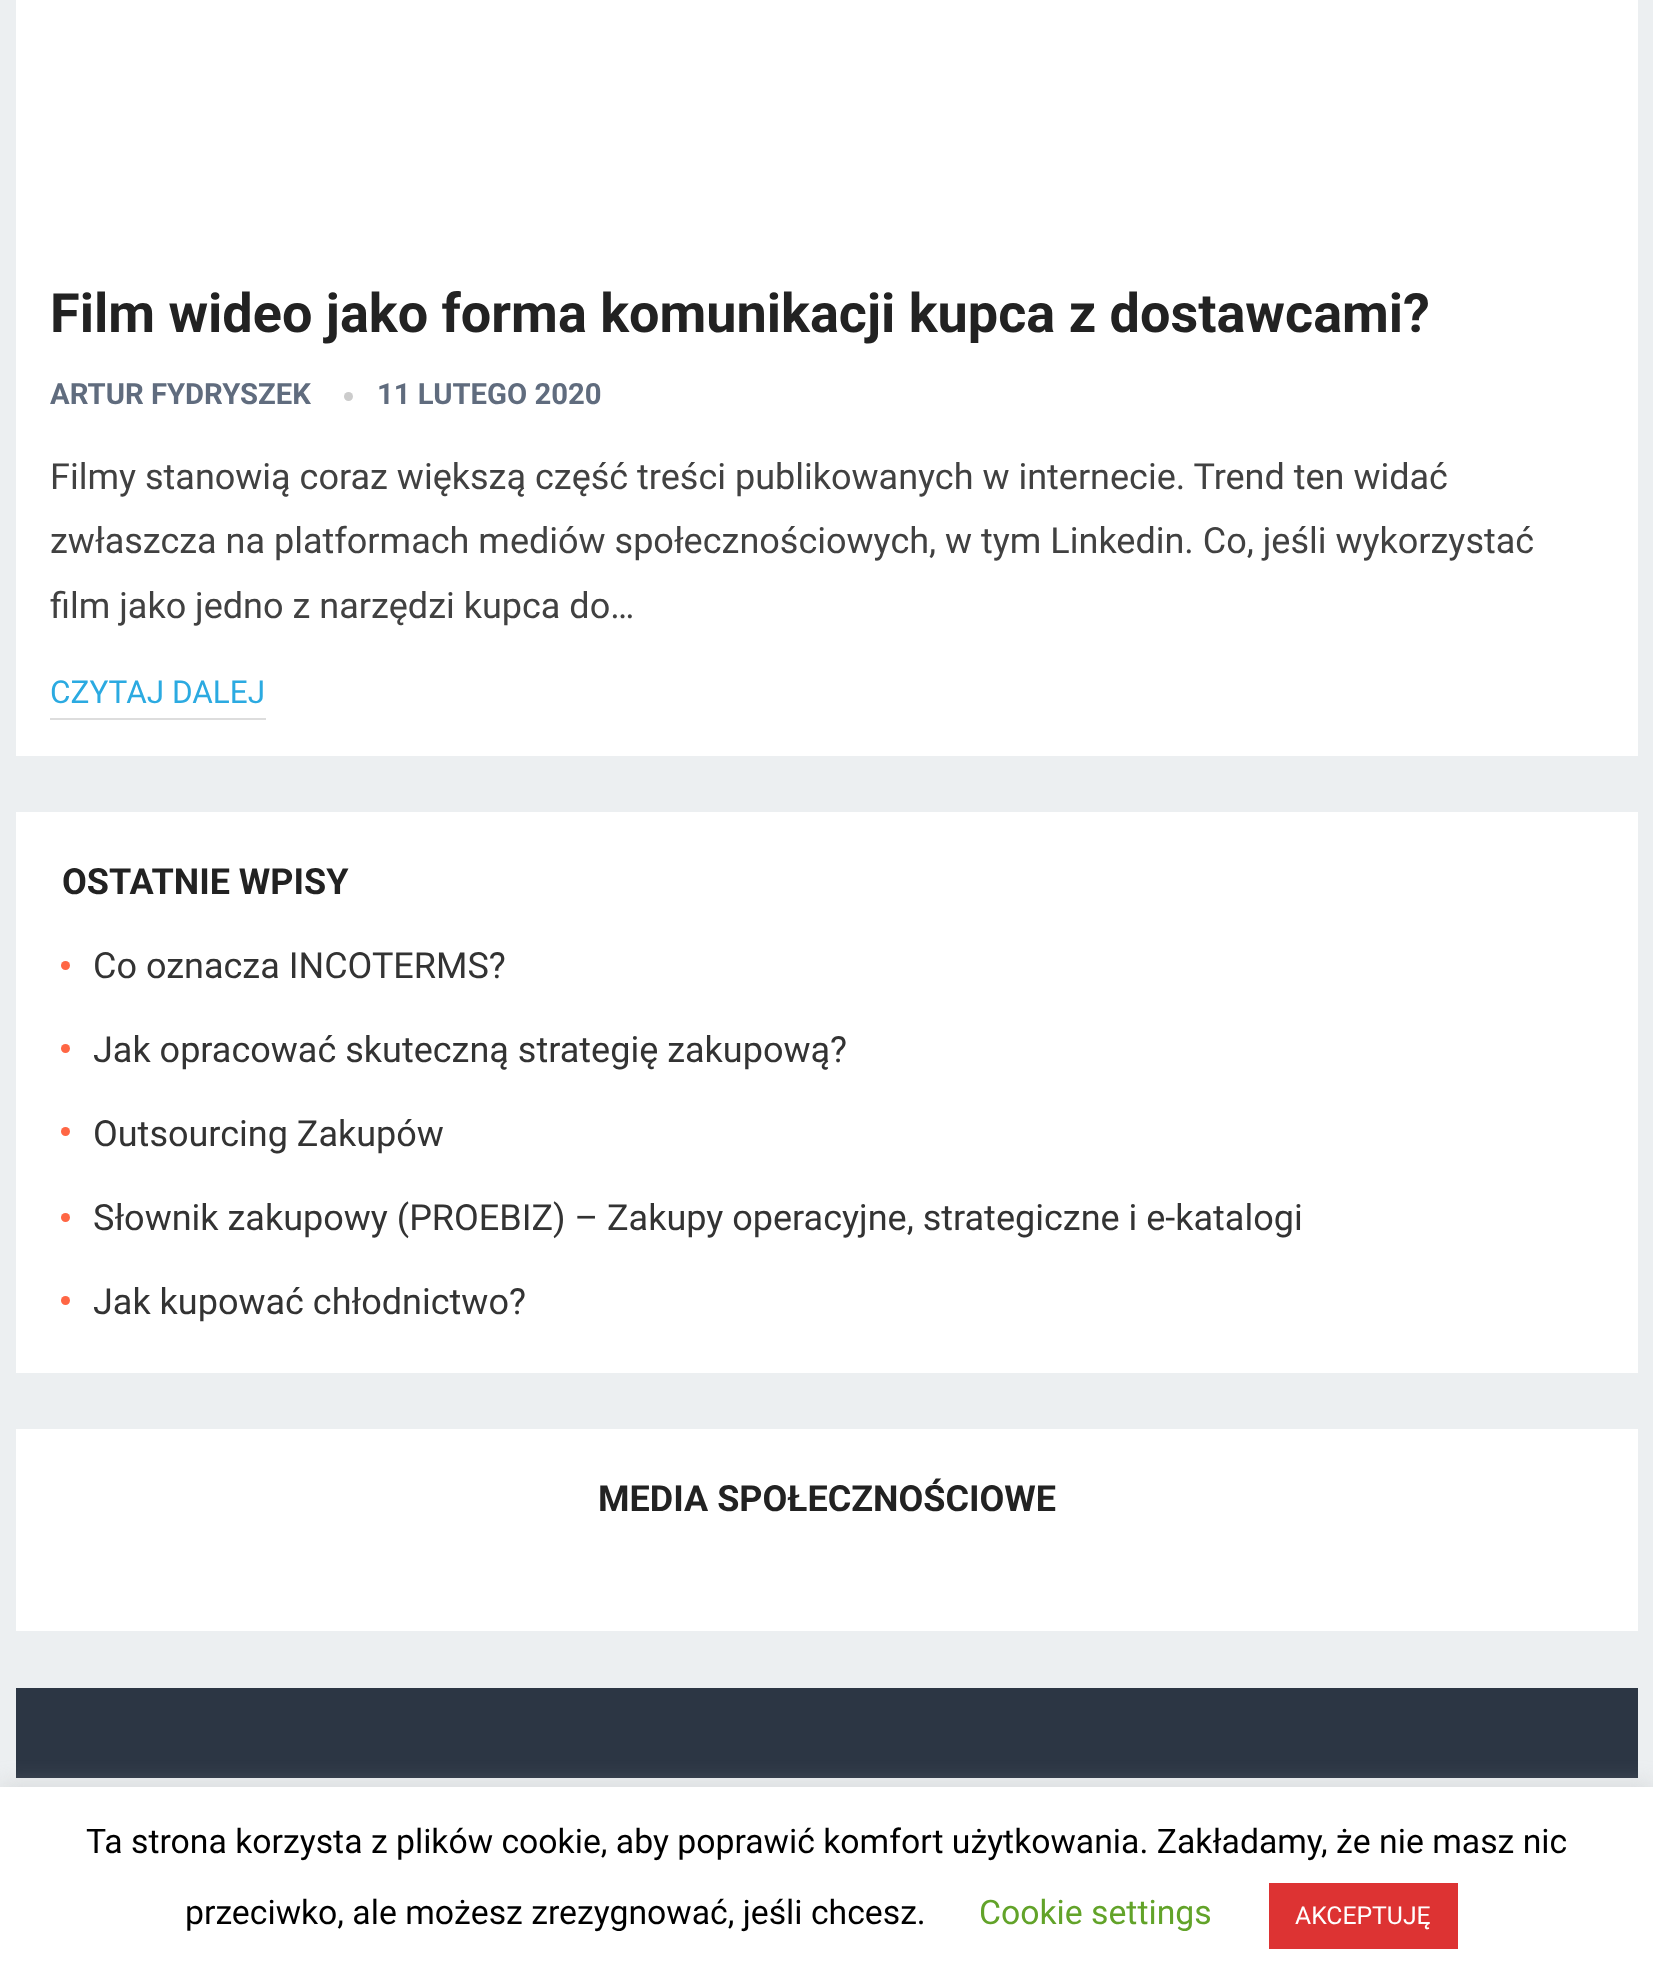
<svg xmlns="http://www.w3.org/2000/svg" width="1653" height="1985">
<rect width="100%" height="100%" fill="#eceff1"/>
<rect x="16" width="1622" height="756" fill="#fff"/>
<text x="50" y="332" style="font-family:Roboto;font-size:54px;font-weight:bold;fill:#222">Film wideo jako forma komunikacji kupca z dostawcami?</text>
<text x="50" y="404" style="font-family:Roboto;font-size:29.25px;font-weight:bold;fill:#606c7e">ARTUR FYDRYSZEK</text>
<circle cx="348.5" cy="396.5" r="4.5" fill="#ccc"/>
<text x="377" y="404" style="font-family:Roboto;font-size:29.25px;font-weight:bold;fill:#606c7e">11 LUTEGO 2020</text>
<text x="50" y="489" style="font-family:Roboto;font-size:36px;fill:#414141">Filmy stanowią coraz większą część treści publikowanych w internecie. Trend ten widać</text>
<text x="50" y="553" style="font-family:Roboto;font-size:36px;fill:#414141">zwłaszcza na platformach mediów społecznościowych, w tym Linkedin. Co, jeśli wykorzystać</text>
<text x="50" y="618" style="font-family:Roboto;font-size:36px;fill:#414141">film jako jedno z narzędzi kupca do…</text>
<text x="50" y="703" style="font-family:Roboto;font-size:31.5px;fill:#2baae1">CZYTAJ DALEJ</text>
<rect x="50" y="718" width="216" height="2" fill="#ddd"/>
<rect x="16" y="812" width="1622" height="561" fill="#fff"/>
<text x="62" y="894" style="font-family:Roboto;font-size:36px;font-weight:bold;fill:#222">OSTATNIE WPISY</text>
<circle cx="65.5" cy="965.5" r="4.5" fill="#f64"/>
<text x="93" y="978" style="font-family:Roboto;font-size:36px;fill:#333">Co oznacza INCOTERMS?</text>
<circle cx="65.5" cy="1048.5" r="4.5" fill="#f64"/>
<text x="93" y="1062" style="font-family:Roboto;font-size:36px;fill:#333">Jak opracować skuteczną strategię zakupową?</text>
<circle cx="65.5" cy="1131.5" r="4.5" fill="#f64"/>
<text x="93" y="1146" style="font-family:Roboto;font-size:36px;fill:#333">Outsourcing Zakupów</text>
<circle cx="65.5" cy="1217.5" r="4.5" fill="#f64"/>
<text x="93" y="1230" style="font-family:Roboto;font-size:36px;fill:#333">Słownik zakupowy (PROEBIZ) – Zakupy operacyjne, strategiczne i e-katalogi</text>
<circle cx="65.5" cy="1300.5" r="4.5" fill="#f64"/>
<text x="93" y="1314" style="font-family:Roboto;font-size:36px;fill:#333">Jak kupować chłodnictwo?</text>
<rect x="16" y="1429" width="1622" height="202" fill="#fff"/>
<text x="598" y="1511" style="font-family:Roboto;font-size:36px;font-weight:bold;fill:#222">MEDIA SPOŁECZNOŚCIOWE</text>
<rect x="16" y="1688" width="1622" height="90" fill="#2c3644"/>
<rect y="1784" width="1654" height="201" fill="#acabab4d" filter="blur(11px)"/>
<rect y="1787" width="1653" height="198" fill="#fff"/>
<text x="86" y="1853" style="font-family:Roboto;font-size:33.75px;fill:#000">Ta strona korzysta z plików cookie, aby poprawić komfort użytkowania. Zakładamy, że nie masz nic</text>
<text x="185" y="1924" style="font-family:Roboto;font-size:33.75px;fill:#000">przeciwko, ale możesz zrezygnować, jeśli chcesz.</text>
<text x="979" y="1924" style="font-family:Roboto;font-size:33.75px;fill:#62a329">Cookie settings</text>
<rect x="1269" y="1883" width="189" height="66" fill="#d33"/>
<text x="1295" y="1924" style="font-family:Roboto;font-size:24.75px;fill:#fff">AKCEPTUJĘ</text>
</svg>
